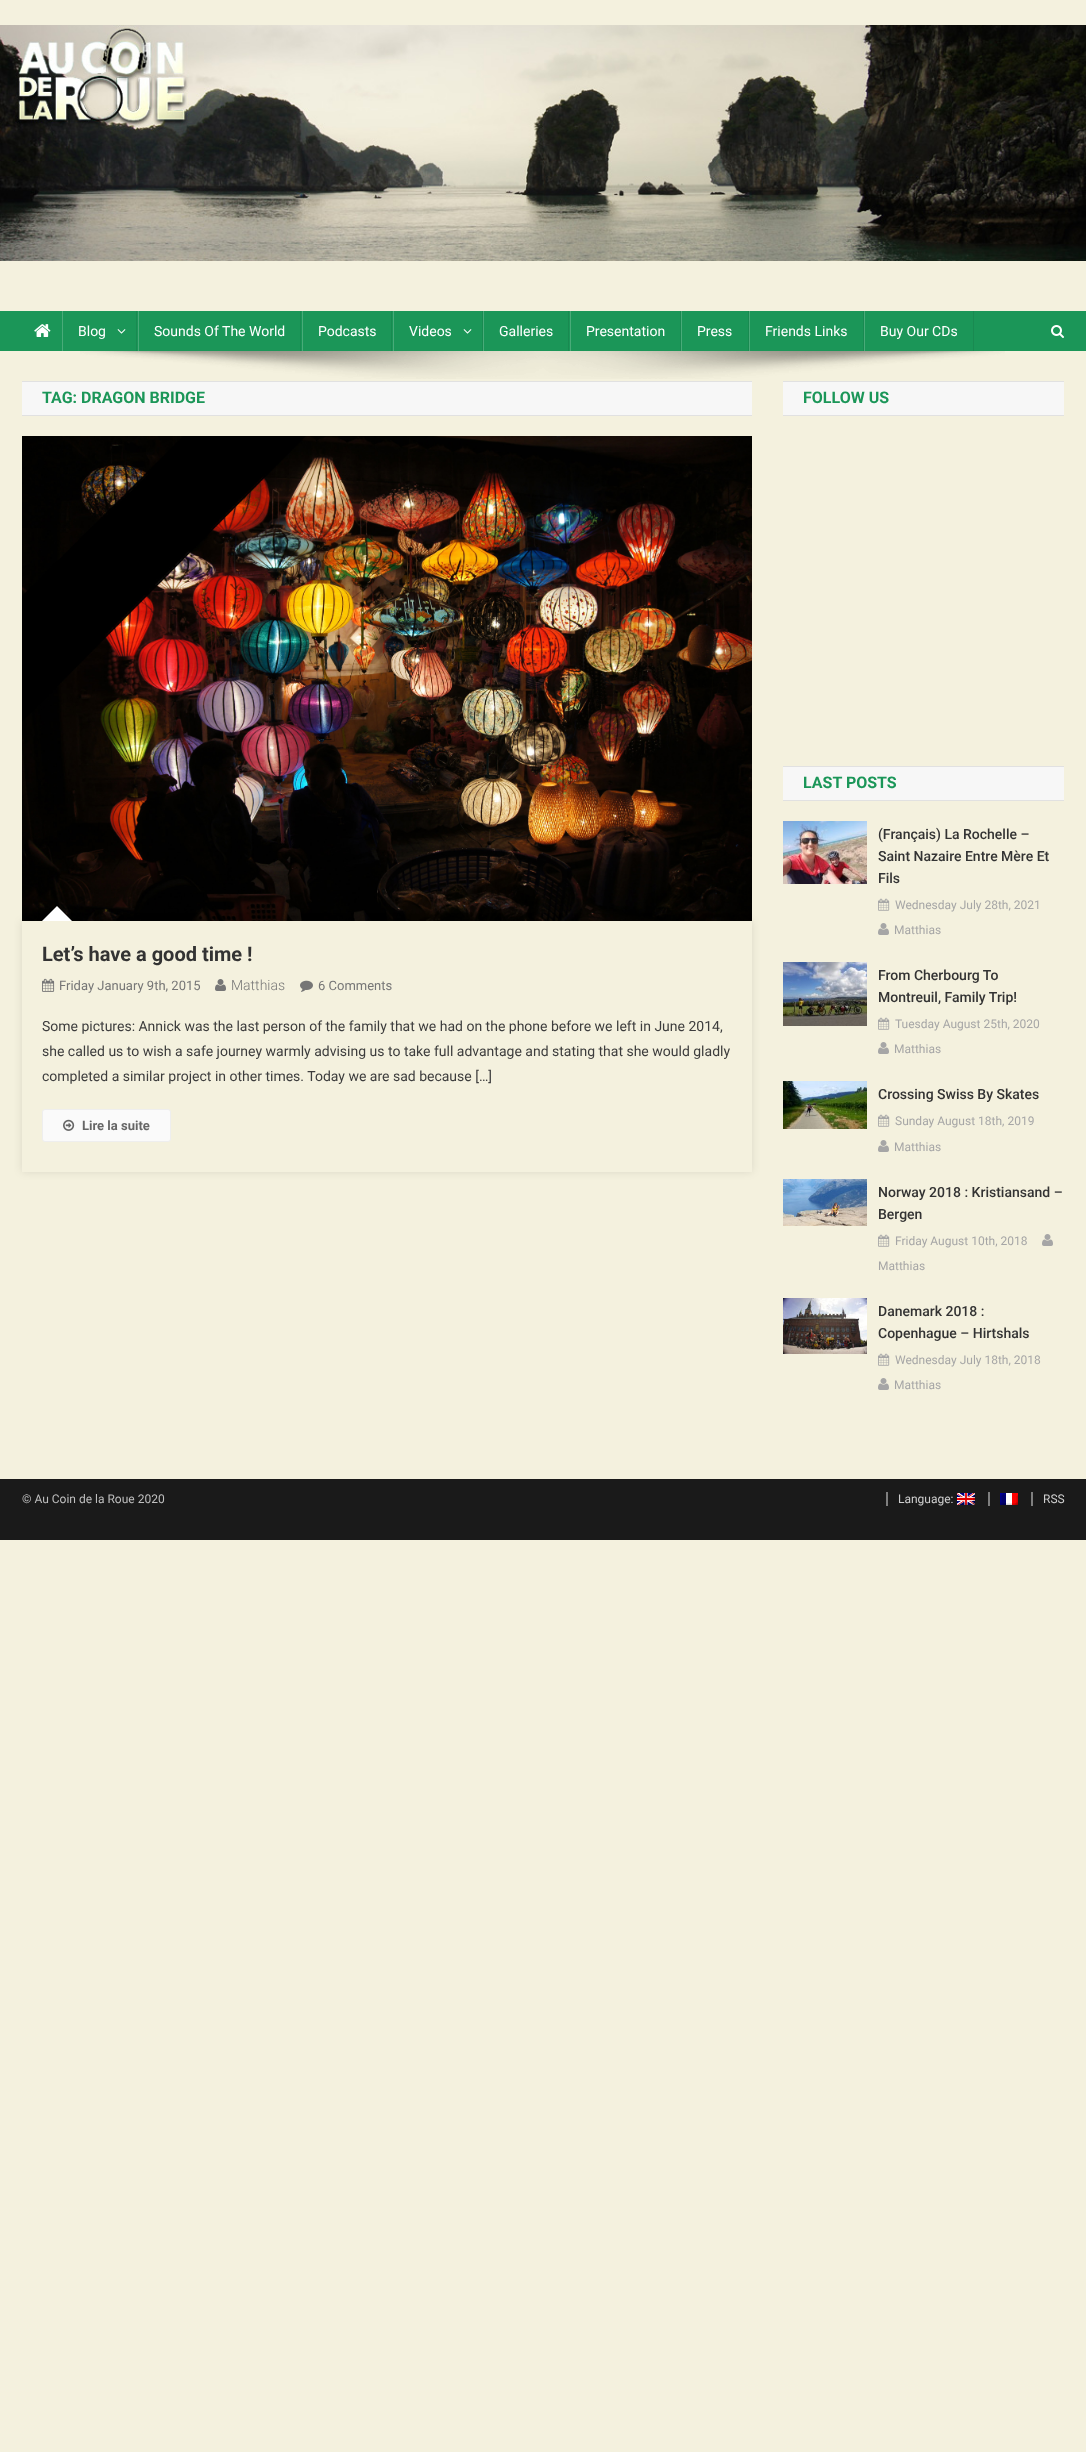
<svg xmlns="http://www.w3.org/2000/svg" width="1086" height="2452">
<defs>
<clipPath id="clip1"><path d="M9 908h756v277h-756zm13 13h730v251h-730z" clip-rule="evenodd"/></clipPath>
</defs>
<rect width="100%" height="100%" fill="#f4f1de"/>
<image x="0" y="25" width="1086" height="236" href="media/1.png"/>
<rect y="311" width="1086" height="40" fill="#1b9658"/>
<image x="34" y="324" width="17" height="13" href="media/2.png"/>
<rect x="136" y="311" width="1" height="40" fill="#198a51"/>
<rect x="62" y="311" width="1" height="40" fill="#49ab79"/>
<text x="78" y="336" style="font-family:Roboto;font-size:14px;fill:#fff">Blog</text>
<image x="117" y="329" width="9" height="5" href="media/3.png"/>
<rect x="300" y="311" width="1" height="40" fill="#198a51"/>
<rect x="138" y="311" width="1" height="40" fill="#49ab79"/>
<text x="154" y="336" style="font-family:Roboto;font-size:14px;fill:#fff">Sounds Of The World</text>
<rect x="391" y="311" width="1" height="40" fill="#198a51"/>
<rect x="302" y="311" width="1" height="40" fill="#49ab79"/>
<text x="318" y="336" style="font-family:Roboto;font-size:14px;fill:#fff">Podcasts</text>
<rect x="482" y="311" width="1" height="40" fill="#198a51"/>
<rect x="393" y="311" width="1" height="40" fill="#49ab79"/>
<text x="409" y="336" style="font-family:Roboto;font-size:14px;fill:#fff">Videos</text>
<image x="463" y="329" width="9" height="5" href="media/3.png"/>
<rect x="568" y="311" width="1" height="40" fill="#198a51"/>
<rect x="483" y="311" width="1" height="40" fill="#49ab79"/>
<text x="499" y="336" style="font-family:Roboto;font-size:14px;fill:#fff">Galleries</text>
<rect x="680" y="311" width="1" height="40" fill="#198a51"/>
<rect x="570" y="311" width="1" height="40" fill="#49ab79"/>
<text x="586" y="336" style="font-family:Roboto;font-size:14px;fill:#fff">Presentation</text>
<rect x="748" y="311" width="1" height="40" fill="#198a51"/>
<rect x="681" y="311" width="1" height="40" fill="#49ab79"/>
<text x="697" y="336" style="font-family:Roboto;font-size:14px;fill:#fff">Press</text>
<rect x="863" y="311" width="1" height="40" fill="#198a51"/>
<rect x="749" y="311" width="1" height="40" fill="#49ab79"/>
<text x="765" y="336" style="font-family:Roboto;font-size:14px;fill:#fff">Friends Links</text>
<rect x="973" y="311" width="1" height="40" fill="#198a51"/>
<rect x="864" y="311" width="1" height="40" fill="#49ab79"/>
<text x="880" y="336" style="font-family:Roboto;font-size:14px;fill:#fff">Buy Our CDs</text>
<image x="1051" y="325" width="13" height="13" href="media/4.png"/>
<image x="80" y="351" width="925" height="28" href="media/5.png"/>
<rect x="22" y="382" width="730" height="33" fill="#f7f7f7"/>
<rect x="22" y="381" width="730" height="1" fill="#e1e1e1"/>
<rect x="22" y="415" width="730" height="1" fill="#e1e1e1"/>
<text x="42" y="403" style="font-family:Roboto;font-size:16px;font-weight:bold;fill:#1b9658">TAG: DRAGON BRIDGE</text>
<image x="22" y="436" width="730" height="485" href="media/6.png"/>
<g clip-path="url(#clip1)">
<rect x="22" y="921" width="730" height="251" fill="#0000001a" filter="blur(4px)"/>
</g>
<path d="M72 921h-30l15-15z" fill="#fff"/>
<text x="42" y="961" style="font-family:Roboto;font-size:20px;font-weight:bold;fill:#333">Let’s have a good time !</text>
<image x="42" y="978" width="13" height="14" href="media/7.png"/>
<text x="59" y="990" style="font-family:Roboto;font-size:13px;fill:#767676">Friday January 9th, 2015</text>
<image x="215" y="979" width="11" height="12" href="media/8.png"/>
<text x="231" y="990" style="font-family:Roboto;font-size:14px;font-weight:300;fill:#767676">Matthias</text>
<image x="300" y="980" width="13" height="12" href="media/9.png"/>
<text x="318" y="990" style="font-family:Roboto;font-size:13px;fill:#767676">6 Comments</text>
<text x="42" y="1031" style="font-family:Roboto;font-size:14px;fill:#3d3d3d">Some pictures: Annick was the last person of the family that we had on the phone before we left in June 2014,</text>
<text x="42" y="1056" style="font-family:Roboto;font-size:14px;fill:#3d3d3d">she called us to wish a safe journey warmly advising us to take full advantage and stating that she would gladly</text>
<text x="42" y="1081" style="font-family:Roboto;font-size:14px;fill:#3d3d3d">completed a similar project in other times. Today we are sad because […]</text>
<rect x="42.5" y="1109.5" width="128" height="32" rx="2.5" fill="#fafafa" stroke="#eee"/>
<image x="63" y="1119" width="12" height="12" href="media/10.png"/>
<text x="82" y="1130" style="font-family:Roboto;font-size:13px;font-weight:bold;fill:#666">Lire la suite</text>
<rect x="783" y="382" width="281" height="33" fill="#f7f7f7"/>
<rect x="783" y="381" width="281" height="1" fill="#e1e1e1"/>
<rect x="783" y="415" width="281" height="1" fill="#e1e1e1"/>
<text x="803" y="403" style="font-family:Roboto;font-size:16px;font-weight:bold;fill:#1b9658">FOLLOW US</text>
<rect x="783" y="767" width="281" height="33" fill="#f7f7f7"/>
<rect x="783" y="766" width="281" height="1" fill="#e1e1e1"/>
<rect x="783" y="800" width="281" height="1" fill="#e1e1e1"/>
<text x="803" y="788" style="font-family:Roboto;font-size:16px;font-weight:bold;fill:#1b9658">LAST POSTS</text>
<image x="783" y="821" width="84" height="63" href="media/11.png"/>
<text x="878" y="839" style="font-family:Roboto;font-size:14px;font-weight:500;fill:#333">(Français) La Rochelle –</text>
<text x="878" y="861" style="font-family:Roboto;font-size:14px;font-weight:500;fill:#333">Saint Nazaire Entre Mère Et</text>
<text x="878" y="883" style="font-family:Roboto;font-size:14px;font-weight:500;fill:#333">Fils</text>
<image x="878" y="898" width="12" height="13" href="media/12.png"/>
<text x="895" y="909" style="font-family:Roboto;font-size:12px;fill:#a6a6a6">Wednesday July 28th, 2021</text>
<image x="878" y="923" width="11" height="12" href="media/13.png"/>
<text x="894" y="934" style="font-family:Roboto;font-size:12px;fill:#a6a6a6">Matthias</text>
<image x="783" y="962" width="84" height="64" href="media/14.png"/>
<text x="878" y="980" style="font-family:Roboto;font-size:14px;font-weight:500;fill:#333">From Cherbourg To</text>
<text x="878" y="1002" style="font-family:Roboto;font-size:14px;font-weight:500;fill:#333">Montreuil, Family Trip!</text>
<image x="878" y="1017" width="12" height="13" href="media/12.png"/>
<text x="895" y="1028" style="font-family:Roboto;font-size:12px;fill:#a6a6a6">Tuesday August 25th, 2020</text>
<image x="878" y="1042" width="11" height="12" href="media/13.png"/>
<text x="894" y="1053" style="font-family:Roboto;font-size:12px;fill:#a6a6a6">Matthias</text>
<image x="783" y="1081" width="84" height="48" href="media/15.png"/>
<text x="878" y="1099" style="font-family:Roboto;font-size:14px;font-weight:500;fill:#333">Crossing Swiss By Skates</text>
<image x="878" y="1114" width="12" height="13" href="media/12.png"/>
<text x="895" y="1125" style="font-family:Roboto;font-size:12px;fill:#a6a6a6">Sunday August 18th, 2019</text>
<image x="878" y="1140" width="11" height="12" href="media/13.png"/>
<text x="894" y="1151" style="font-family:Roboto;font-size:12px;fill:#a6a6a6">Matthias</text>
<image x="783" y="1179" width="84" height="47" href="media/16.png"/>
<text x="878" y="1197" style="font-family:Roboto;font-size:14px;font-weight:500;fill:#333">Norway 2018 : Kristiansand –</text>
<text x="878" y="1219" style="font-family:Roboto;font-size:14px;font-weight:500;fill:#333">Bergen</text>
<image x="878" y="1234" width="12" height="13" href="media/12.png"/>
<text x="895" y="1245" style="font-family:Roboto;font-size:12px;fill:#a6a6a6">Friday August 10th, 2018</text>
<image x="1042" y="1234" width="11" height="12" href="media/13.png"/>
<text x="878" y="1270" style="font-family:Roboto;font-size:12px;fill:#a6a6a6">Matthias</text>
<image x="783" y="1298" width="84" height="56" href="media/17.png"/>
<text x="878" y="1316" style="font-family:Roboto;font-size:14px;font-weight:500;fill:#333">Danemark 2018 :</text>
<text x="878" y="1338" style="font-family:Roboto;font-size:14px;font-weight:500;fill:#333">Copenhague – Hirtshals</text>
<image x="878" y="1353" width="12" height="13" href="media/12.png"/>
<text x="895" y="1364" style="font-family:Roboto;font-size:12px;fill:#a6a6a6">Wednesday July 18th, 2018</text>
<image x="878" y="1378" width="11" height="12" href="media/13.png"/>
<text x="894" y="1389" style="font-family:Roboto;font-size:12px;fill:#a6a6a6">Matthias</text>
<rect y="1479" width="1086" height="61" fill="#1a1a1a"/>
<text x="22" y="1503" style="font-family:Roboto;font-size:12px;fill:#bfbfbf">© Au Coin de la Roue 2020</text>
<text x="898" y="1503" style="font-family:Roboto;font-size:12px;fill:#cfcfcf">Language:</text>
<rect x="886" y="1492" width="2" height="14" fill="#7f7f7f"/>
<image x="957" y="1493" width="18" height="12" href="media/18.png"/>
<rect x="988" y="1492" width="2" height="14" fill="#7f7f7f"/>
<image x="1000" y="1493" width="18" height="12" href="media/19.png"/>
<text x="1043" y="1503" style="font-family:Roboto;font-size:12px;fill:#cfcfcf">RSS</text>
<rect x="1031" y="1492" width="2" height="14" fill="#7f7f7f"/>
</svg>
